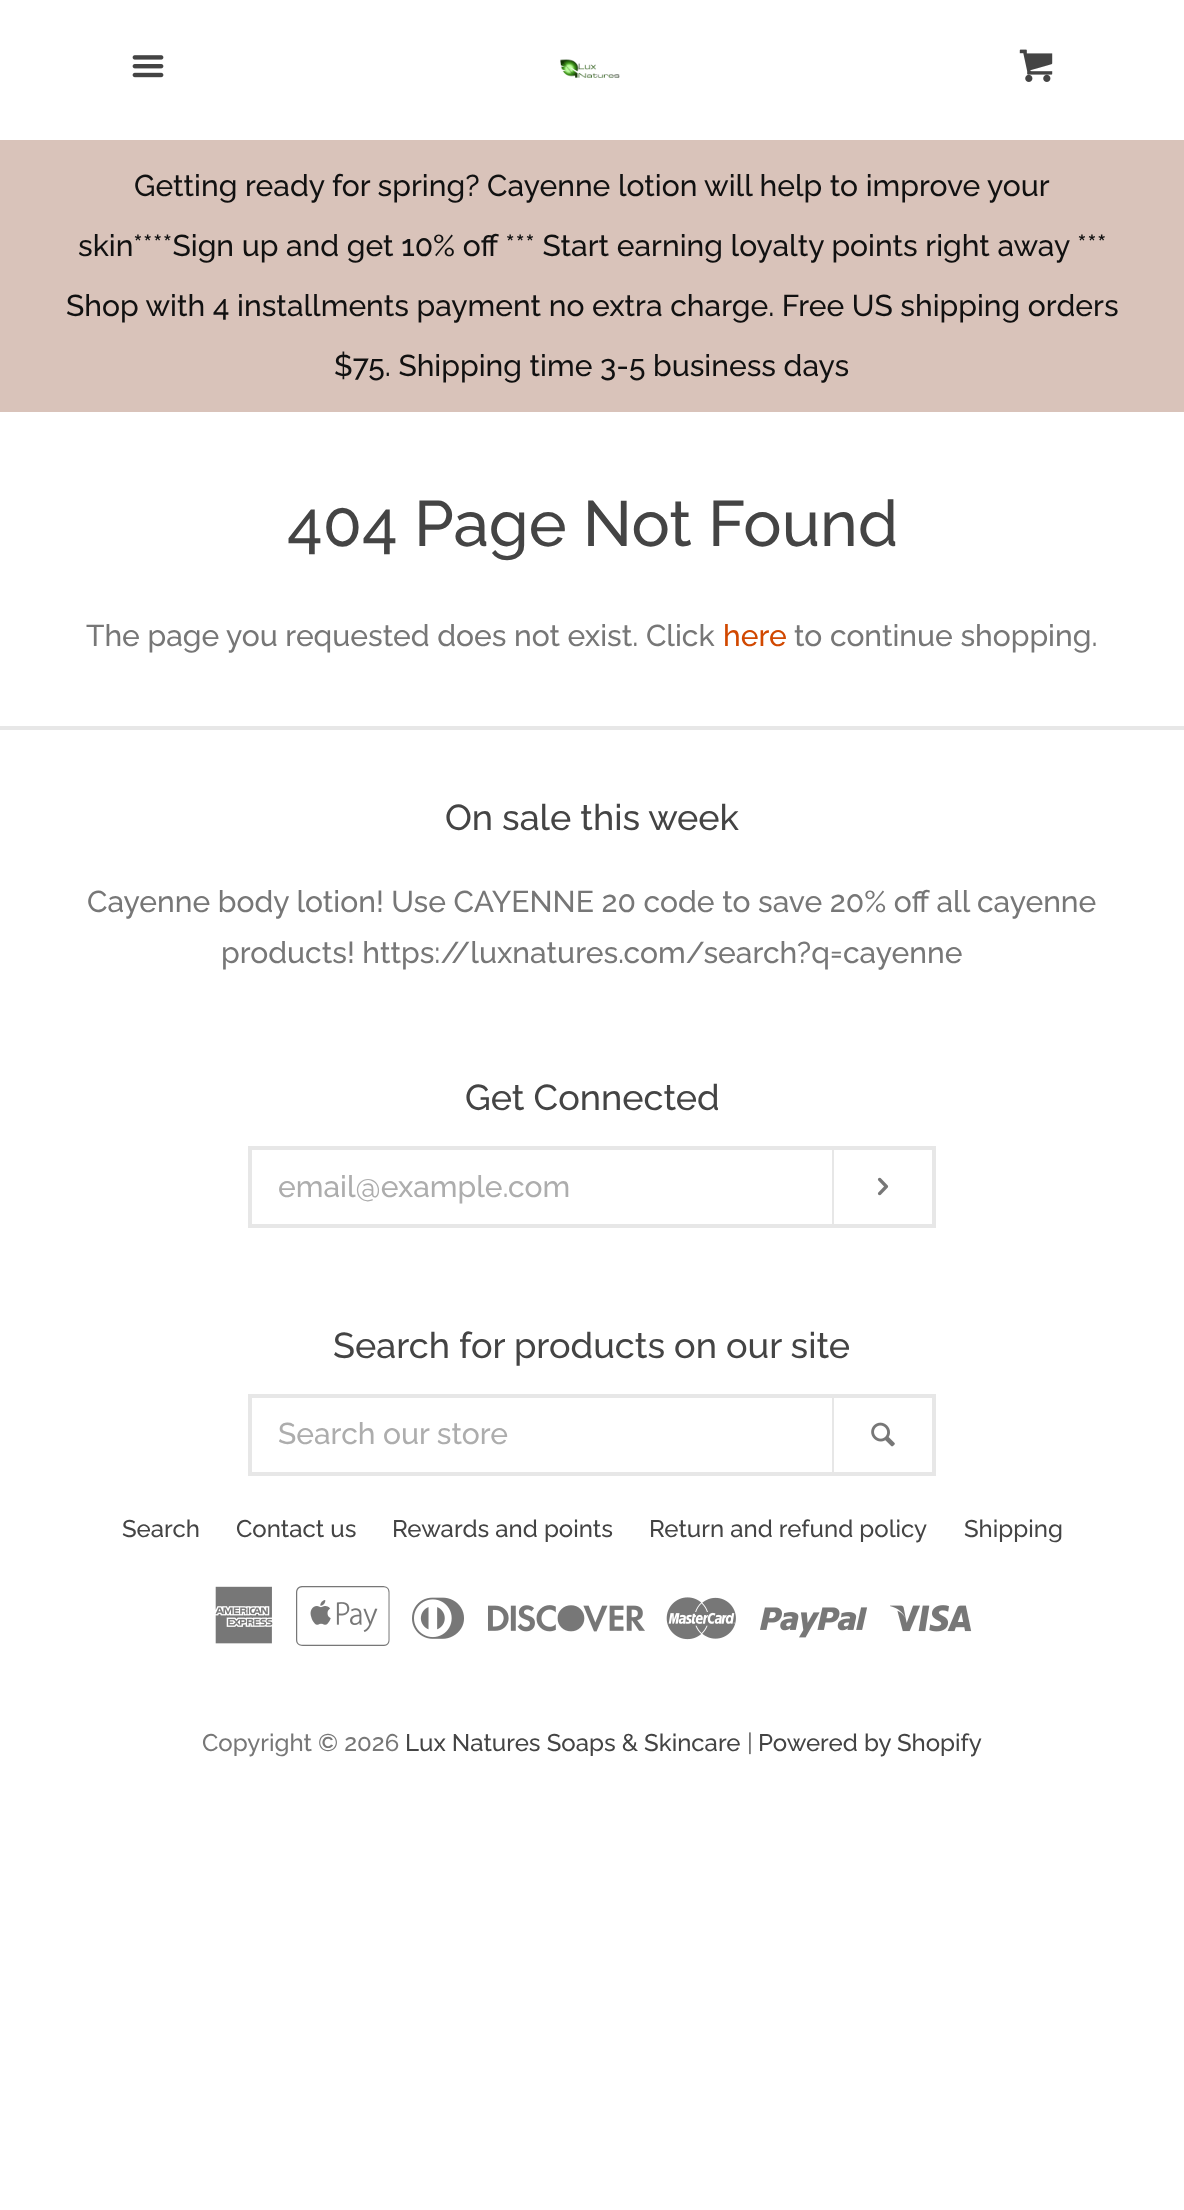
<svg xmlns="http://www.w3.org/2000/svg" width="1184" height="2210">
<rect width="100%" height="100%" fill="#fff"/>
<image x="132" y="55" width="32" height="23" href="media/1.png"/>
<image x="560" y="59" width="60" height="19" href="media/2.png"/>
<image x="1019" y="49" width="34" height="33" href="media/3.png"/>
<rect y="140" width="1184" height="272" fill="#d9c3ba"/>
<text x="134" y="196" style="font-family:Raleway;font-size:30px;font-weight:500;fill:#111">Getting ready for spring? Cayenne lotion will help to improve your</text>
<text x="78" y="256" style="font-family:Raleway;font-size:30px;font-weight:500;fill:#111">skin****Sign up and get 10% off *** Start earning loyalty points right away ***</text>
<text x="66" y="316" style="font-family:Raleway;font-size:30px;font-weight:500;fill:#111">Shop with 4 installments payment no extra charge. Free US shipping orders</text>
<text x="334" y="376" style="font-family:Raleway;font-size:30px;font-weight:500;fill:#111">$75. Shipping time 3-5 business days</text>
<text x="287" y="546" style="font-family:Raleway;font-size:64px;font-weight:500;fill:#444">404 Page Not Found</text>
<text x="86" y="646" style="font-family:Raleway;font-size:30px;font-weight:500;fill:#777">The page you requested does not exist. Click</text>
<text x="723" y="646" style="font-family:Raleway;font-size:30px;font-weight:500;fill:#d14800">here</text>
<text x="794" y="646" style="font-family:Raleway;font-size:30px;font-weight:500;fill:#777">to continue shopping.</text>
<rect y="726" width="1184" height="4" fill="#e7e7e7"/>
<text x="445" y="830" style="font-family:Raleway;font-size:36px;font-weight:500;fill:#444">On sale this week</text>
<text x="87" y="912" style="font-family:Raleway;font-size:30px;font-weight:500;fill:#777">Cayenne body lotion! Use CAYENNE 20 code to save 20% off all cayenne</text>
<text x="221" y="963" style="font-family:Raleway;font-size:30px;font-weight:500;fill:#777">products! https://luxnatures.com/search?q=cayenne</text>
<text x="465" y="1110" style="font-family:Raleway;font-size:36px;font-weight:500;fill:#444">Get Connected</text>
<rect x="250" y="1148" width="684" height="78" fill="none" stroke="#e7e7e7" stroke-width="4"/>
<rect x="832" y="1150" width="2" height="74" fill="#e7e7e7"/>
<text x="278" y="1197" style="font-family:Raleway;font-size:30px;font-weight:500;fill:#adadad">email@example.com</text>
<image x="877" y="1177" width="12" height="19" href="media/4.png"/>
<text x="333" y="1358" style="font-family:Raleway;font-size:36px;font-weight:500;fill:#444">Search for products on our site</text>
<rect x="250" y="1396" width="684" height="78" fill="none" stroke="#e7e7e7" stroke-width="4"/>
<rect x="832" y="1398" width="2" height="74" fill="#e7e7e7"/>
<text x="278" y="1444" style="font-family:Raleway;font-size:30px;font-weight:500;fill:#adadad">Search our store</text>
<image x="871" y="1422" width="24" height="25" href="media/5.png"/>
<text x="122" y="1537" style="font-family:Raleway;font-size:24px;font-weight:500;fill:#444">Search</text>
<text x="236" y="1537" style="font-family:Raleway;font-size:24px;font-weight:500;fill:#444">Contact us</text>
<text x="392" y="1537" style="font-family:Raleway;font-size:24px;font-weight:500;fill:#444">Rewards and points</text>
<text x="649" y="1537" style="font-family:Raleway;font-size:24px;font-weight:500;fill:#444">Return and refund policy</text>
<text x="964" y="1537" style="font-family:Raleway;font-size:24px;font-weight:500;fill:#444">Shipping</text>
<image x="215" y="1586" width="58" height="58" href="media/6.png"/>
<image x="296" y="1586" width="94" height="60" href="media/7.png"/>
<image x="412" y="1597" width="52" height="42" href="media/8.png"/>
<image x="488" y="1605" width="157" height="27" href="media/9.png"/>
<image x="666" y="1597" width="70" height="43" href="media/10.png"/>
<image x="760" y="1607" width="108" height="31" href="media/11.png"/>
<image x="890" y="1605" width="82" height="27" href="media/12.png"/>
<text x="202" y="1751" style="font-family:Raleway;font-size:24px;font-weight:500;fill:#777">Copyright © 2026</text>
<text x="405" y="1751" style="font-family:Raleway;font-size:24px;font-weight:500;fill:#444">Lux Natures Soaps &amp; Skincare</text>
<text x="747" y="1751" style="font-family:Raleway;font-size:24px;font-weight:500;fill:#777">|</text>
<text x="758" y="1751" style="font-family:Raleway;font-size:24px;font-weight:500;fill:#444">Powered by Shopify</text>
</svg>
